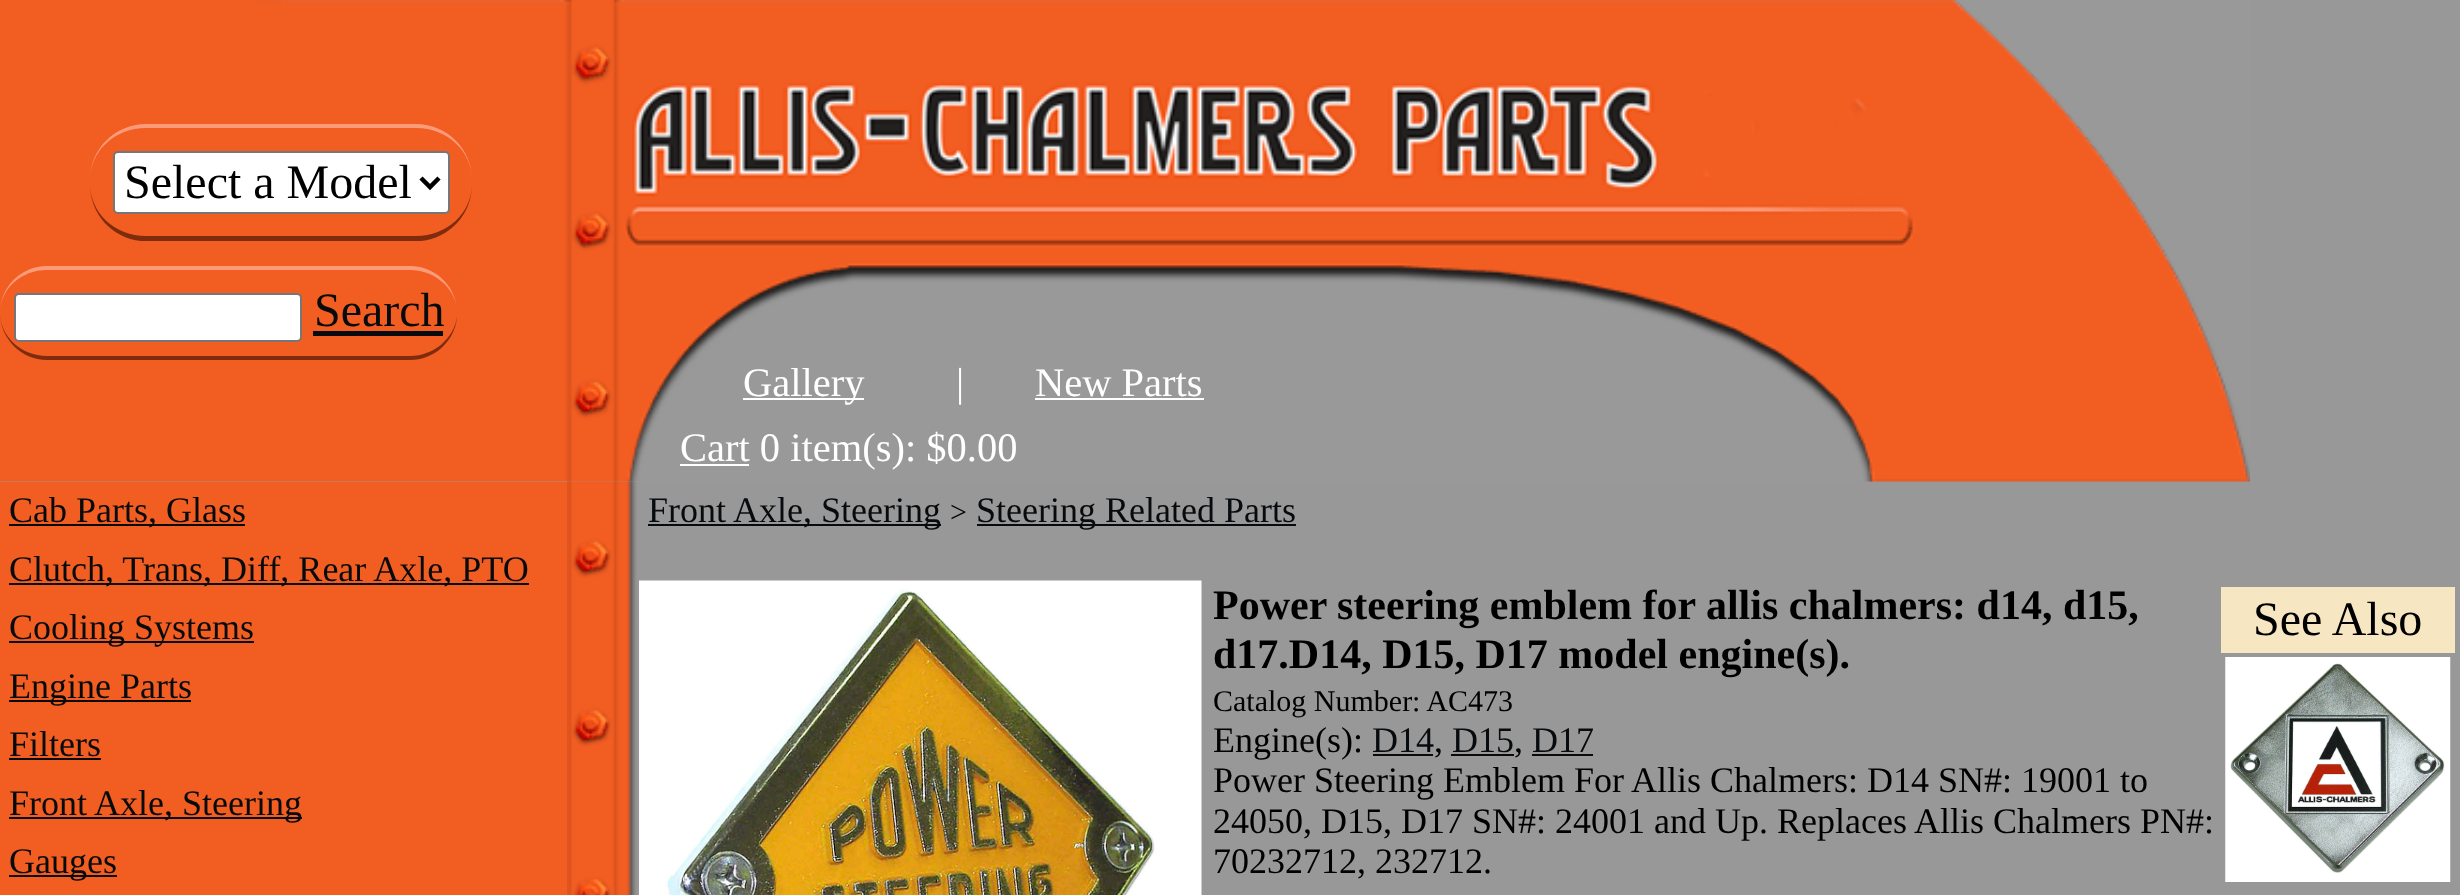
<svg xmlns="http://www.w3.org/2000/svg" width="2460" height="895">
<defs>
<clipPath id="clip1"><rect x="1373" y="720" width="220" height="41"/></clipPath>
</defs>
<rect width="100%" height="100%" fill="#989898"/>
<image x="0" y="0" width="2250" height="482" href="media/1.png"/>
<path d="M146 124c-31 0-56 25-56 56c0-29 25-52 56-52h270c31 0 56 23 56 52c0-31-25-56-56-56z" fill="#fb9b7a"/>
<path d="M421 241c29-3 51-27 51-57c0 29-25 52-56 52h-270c-31 0-56-23-56-52c0 30 22 54 51 57z" fill="#7e2c0d"/>
<rect x="114" y="152" width="335" height="61" rx="4" fill="#fff" stroke="#767676" stroke-width="2"/>
<path d="M421 178l9 9l9-9" fill="none" stroke="#000" stroke-width="4.5"/>
<text x="124" y="198" style="font-family:Liberation Serif;font-size:48px;fill:#000">Select a Model</text>
<path d="M47 266c-26 0-47 21-47 47c0-24 21-43 47-43h363c24 0 44 17 47 38c-3-24-23-42-47-42z" fill="#fb9b7a"/>
<path d="M47 360h363c24 0 44-18 47-42v-1c-3 21-23 39-47 39h-363c-26 0-47-20-47-43c0 25 21 47 47 47z" fill="#7e2c0d"/>
<rect x="15" y="294" width="286" height="47" rx="4" fill="#fff" stroke="#767676" stroke-width="2"/>
<text x="314" y="326" style="font-family:Liberation Serif;font-size:48px;fill:#080b0e">Search</text>
<rect x="313" y="331" width="130" height="5" fill="#080b0e"/>
<rect x="743" y="398" width="121" height="2" fill="#fff"/>
<text x="743" y="396" style="font-family:Liberation Serif;font-size:40.5px;fill:#fff">Gallery</text>
<text x="956" y="396" style="font-family:Liberation Serif;font-size:40.5px;fill:#fff">|</text>
<text x="1035" y="396" style="font-family:Liberation Serif;font-size:40.5px;fill:#fff">New Parts</text>
<rect x="1035" y="398" width="169" height="2" fill="#fff"/>
<rect x="680" y="464" width="69" height="2" fill="#fff"/>
<text x="680" y="461" style="font-family:Liberation Serif;font-size:40.5px;fill:#fff">Cart 0 item(s): $0.00</text>
<rect y="482" width="567" height="413" fill="#f25d22"/>
<rect x="9" y="524" width="236" height="2" fill="#080b0e"/>
<text x="9" y="522" style="font-family:Liberation Serif;font-size:36px;fill:#080b0e">Cab Parts, Glass</text>
<rect x="9" y="583" width="520" height="2" fill="#080b0e"/>
<text x="9" y="581" style="font-family:Liberation Serif;font-size:36px;fill:#080b0e">Clutch, Trans, Diff, Rear Axle, PTO</text>
<rect x="9" y="641" width="245" height="2" fill="#080b0e"/>
<text x="9" y="639" style="font-family:Liberation Serif;font-size:36px;fill:#080b0e">Cooling Systems</text>
<rect x="9" y="700" width="182" height="2" fill="#080b0e"/>
<text x="9" y="698" style="font-family:Liberation Serif;font-size:36px;fill:#080b0e">Engine Parts</text>
<text x="9" y="756" style="font-family:Liberation Serif;font-size:36px;fill:#080b0e">Filters</text>
<rect x="9" y="758" width="92" height="2" fill="#080b0e"/>
<rect x="9" y="817" width="293" height="2" fill="#080b0e"/>
<text x="9" y="815" style="font-family:Liberation Serif;font-size:36px;fill:#080b0e">Front Axle, Steering</text>
<rect x="9" y="875" width="108" height="2" fill="#080b0e"/>
<text x="9" y="873" style="font-family:Liberation Serif;font-size:36px;fill:#080b0e">Gauges</text>
<image x="567" y="481" width="70" height="414" href="media/2.png"/>
<rect x="648" y="524" width="293" height="2" fill="#080b0e"/>
<text x="648" y="522" style="font-family:Liberation Serif;font-size:36px;fill:#080b0e">Front Axle, Steering</text>
<text x="950" y="522" style="font-family:Liberation Serif;font-size:30px;fill:#000">&gt;</text>
<rect x="977" y="524" width="319" height="2" fill="#080b0e"/>
<text x="976" y="522" style="font-family:Liberation Serif;font-size:36px;fill:#080b0e">Steering Related Parts</text>
<image x="639" y="580" width="563" height="315" href="media/3.png"/>
<text x="1213" y="619" style="font-family:Liberation Serif;font-size:42px;font-weight:bold;fill:#000">Power steering emblem for allis chalmers: d14, d15,</text>
<text x="1213" y="668" style="font-family:Liberation Serif;font-size:42px;font-weight:bold;fill:#000">d17.D14, D15, D17 model engine(s).</text>
<text x="1213" y="711" style="font-family:Liberation Serif;font-size:30px;fill:#000">Catalog Number: AC473</text>
<text x="1213" y="752" style="font-family:Liberation Serif;font-size:36px;fill:#000">Engine(s):</text>
<g clip-path="url(#clip1)">
<text x="1372" y="752" style="font-family:Liberation Serif;font-size:36px;fill:#080b0e">D14</text>
</g>
<rect x="1373" y="754" width="60" height="2" fill="#080b0e"/>
<text x="1434" y="752" style="font-family:Liberation Serif;font-size:36px;fill:#000">,</text>
<text x="1452" y="752" style="font-family:Liberation Serif;font-size:36px;fill:#080b0e">D15</text>
<rect x="1451" y="754" width="63" height="2" fill="#080b0e"/>
<text x="1514" y="752" style="font-family:Liberation Serif;font-size:36px;fill:#000">,</text>
<text x="1532" y="752" style="font-family:Liberation Serif;font-size:36px;fill:#080b0e">D17</text>
<rect x="1532" y="754" width="61" height="2" fill="#080b0e"/>
<text x="1213" y="792" style="font-family:Liberation Serif;font-size:36px;fill:#000">Power Steering Emblem For Allis Chalmers: D14 SN#: 19001 to</text>
<text x="1213" y="833" style="font-family:Liberation Serif;font-size:36px;fill:#000">24050, D15, D17 SN#: 24001 and Up. Replaces Allis Chalmers PN#:</text>
<text x="1213" y="873" style="font-family:Liberation Serif;font-size:36px;fill:#000">70232712, 232712.</text>
<rect x="2221" y="587" width="234" height="66" fill="#f6e6c2"/>
<text x="2253" y="635" style="font-family:Liberation Serif;font-size:48px;fill:#000">See Also</text>
<image x="2225" y="657" width="226" height="225" href="media/4.png"/>
</svg>
